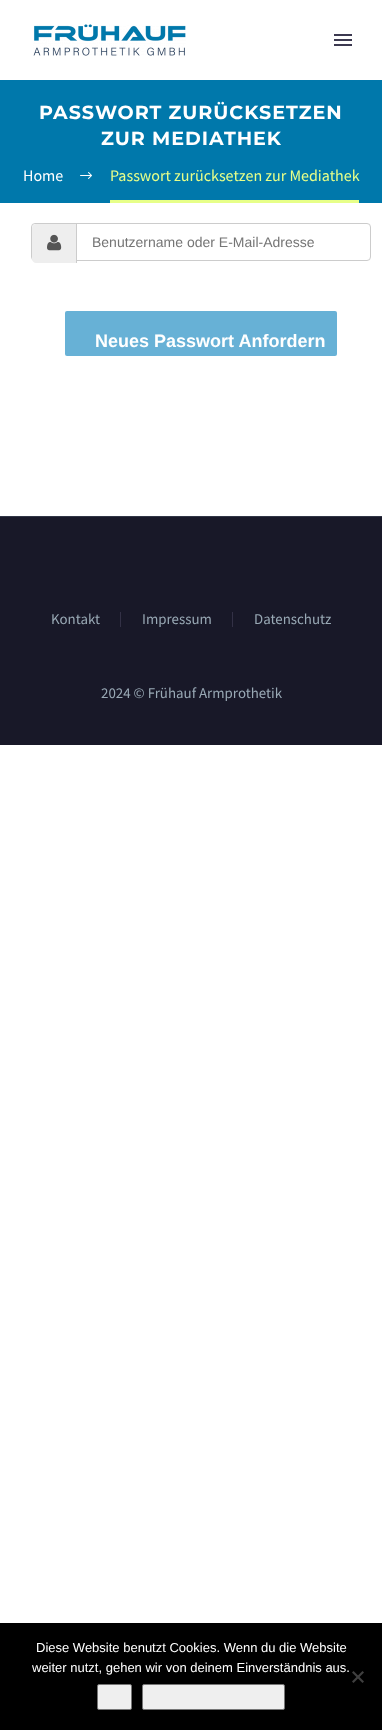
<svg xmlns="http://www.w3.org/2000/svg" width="382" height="1730">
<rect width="100%" height="100%" fill="#fff"/>
<image x="33" y="24" width="153" height="32" href="media/1.png"/>
<rect x="334" y="34" width="18" height="2" fill="#3c3950"/>
<rect x="334" y="39" width="18" height="2" fill="#3c3950"/>
<rect x="334" y="44" width="18" height="2" fill="#3c3950"/>
<rect y="80" width="382" height="123" fill="#0078ab"/>
<text x="39" y="119" style="font-family:Montserrat;font-size:19.1px;font-weight:bold;letter-spacing:0.95px;fill:#fff">PASSWORT ZURÜCKSETZEN</text>
<text x="101" y="145" style="font-family:Montserrat;font-size:19.1px;font-weight:bold;letter-spacing:0.95px;fill:#fff">ZUR MEDIATHEK</text>
<text x="23" y="181" style="font-family:Source Sans Pro;font-size:16px;fill:#fff">Home</text>
<image x="80" y="172" width="12" height="7" href="media/2.png"/>
<rect x="110" y="200" width="249" height="3" fill="#e7ff89"/>
<text x="110" y="181" style="font-family:Source Sans Pro;font-size:16px;fill:#e7ff89">Passwort zurücksetzen zur Mediathek</text>
<rect x="31.5" y="223.5" width="339" height="37" rx="3.5" fill="none" stroke="#ccc"/>
<path d="M36 224h41v39h-41c-2 0-4-2-4-4v-31c0-2 2-4 4-4z" fill="#eee"/>
<rect x="76" y="224" width="1" height="39" fill="#ccc"/>
<image x="47" y="234" width="15" height="17" href="media/3.png"/>
<text x="92" y="247" style="font-family:Liberation Sans;font-size:14px;fill:#757575">Benutzername oder E-Mail-Adresse</text>
<rect x="65" y="311" width="272" height="45" rx="2" fill="#67b1d6"/>
<text x="95" y="347" style="font-family:Liberation Sans;font-size:18px;font-weight:bold;fill:#fff">Neues Passwort Anfordern</text>
<rect y="517" width="382" height="228" fill="#181828"/>
<rect y="516" width="382" height="1" fill="#313646"/>
<text x="51" y="624" style="font-family:Source Sans Pro;font-size:14.9px;fill:#99a9b5">Kontakt</text>
<rect x="120" y="612" width="1" height="15" fill="#333146"/>
<text x="142" y="624" style="font-family:Source Sans Pro;font-size:14.9px;fill:#99a9b5">Impressum</text>
<rect x="232" y="612" width="1" height="15" fill="#333146"/>
<text x="254" y="624" style="font-family:Source Sans Pro;font-size:14.9px;fill:#99a9b5">Datenschutz</text>
<text x="101" y="698" style="font-family:Source Sans Pro;font-size:14.9px;fill:#99a9b5">2024 © Frühauf Armprothetik</text>
<rect y="1623" width="382" height="107" fill="#000"/>
<text x="36" y="1652" style="font-family:Liberation Sans;font-size:13px;fill:#fff">Diese Website benutzt Cookies. Wenn du die Website</text>
<text x="32" y="1672" style="font-family:Liberation Sans;font-size:13px;fill:#fff">weiter nutzt, gehen wir von deinem Einverständnis aus.</text>
<path d="M362.5 1671l1.5 1.5l-10.5 10.5l-1.5-1.5z" fill="#404040"/>
<path d="M352 1672.5l1.5-1.5l10.5 10.5l-1.5 1.5z" fill="#404040"/>
<rect x="97.5" y="1684.5" width="34" height="25" rx="1.5" fill="#efefef" stroke="#767676"/>
<rect x="142.5" y="1684.5" width="142" height="25" rx="1.5" fill="#efefef" stroke="#767676"/>
</svg>
